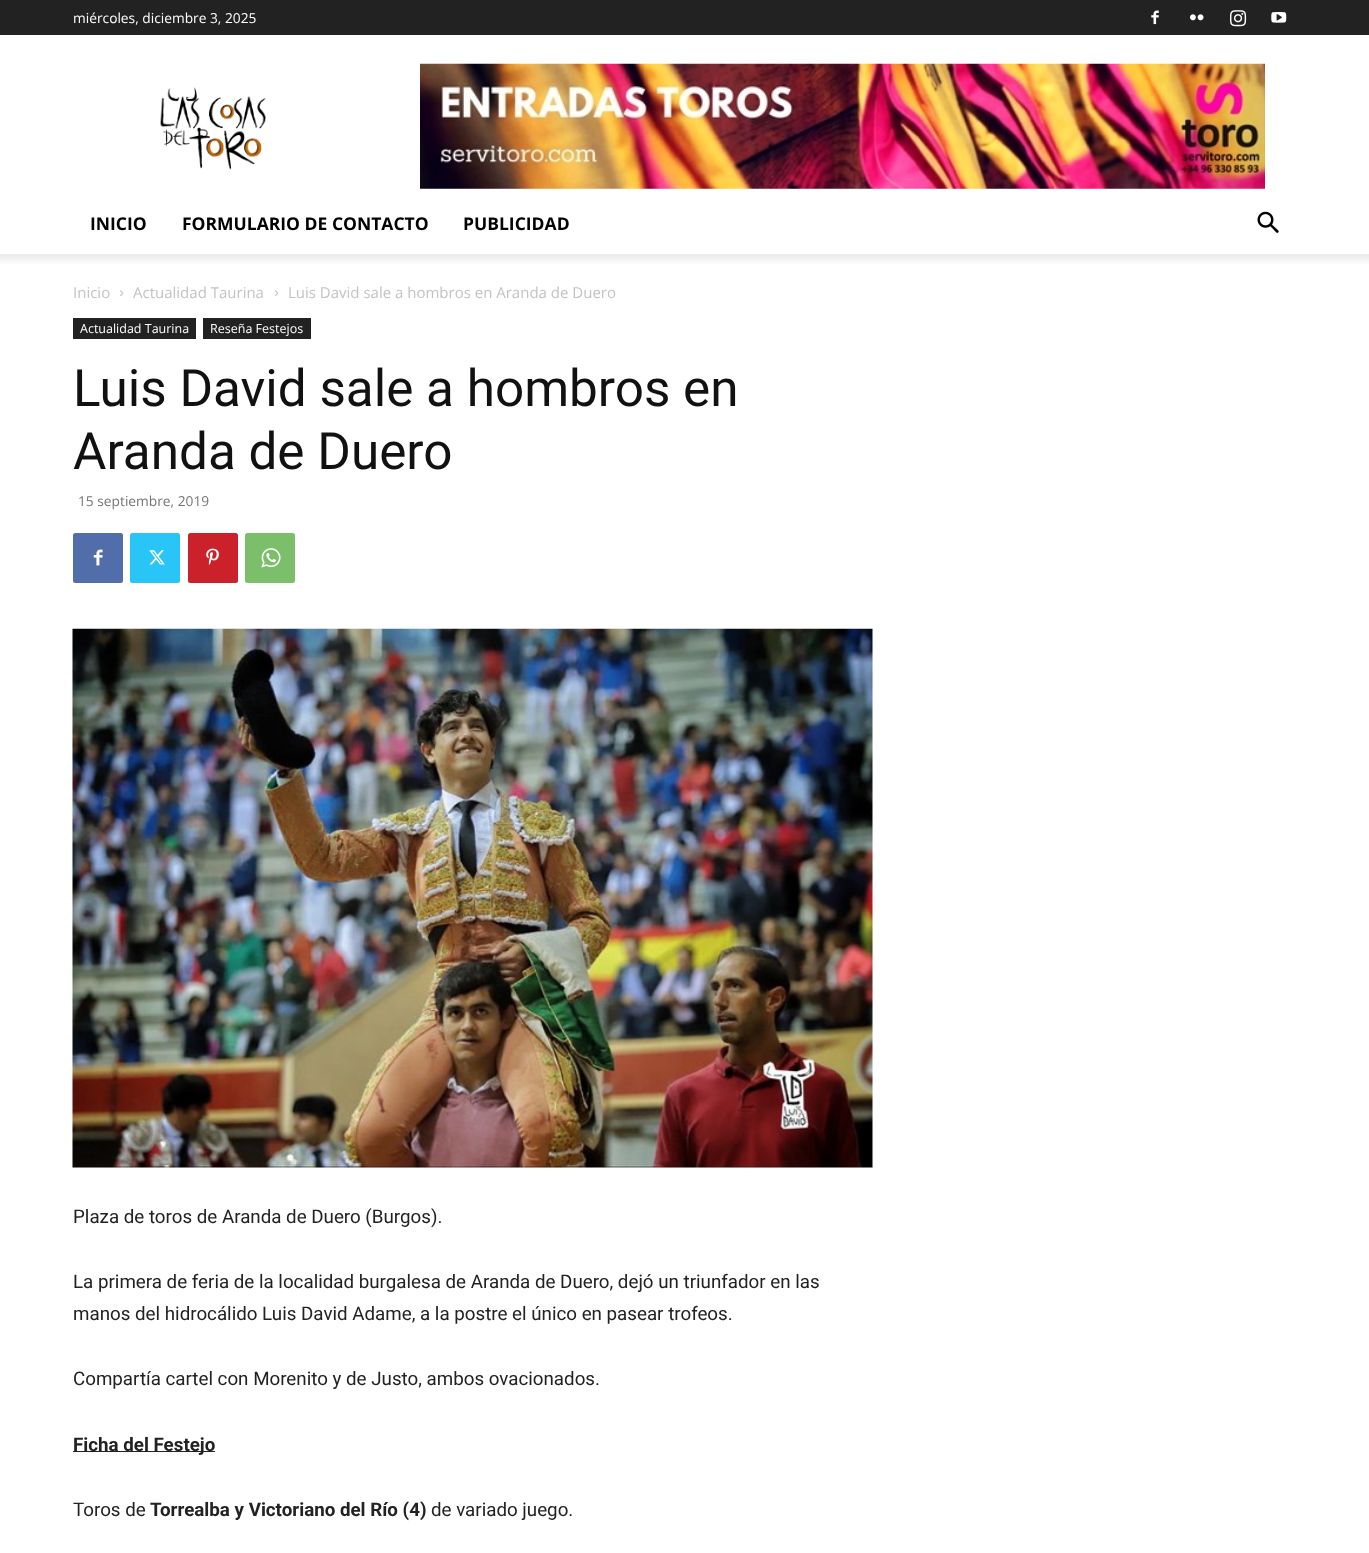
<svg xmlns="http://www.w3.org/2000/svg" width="1369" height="1553">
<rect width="100%" height="100%" fill="#fff"/>
<rect width="1369" height="35" fill="#222"/>
<text x="73" y="23" style="font-family:Open Sans;font-size:13.75px;fill:#fff">miércoles, diciembre 3, 2025</text>
<image x="1151" y="10" width="8" height="15" href="media/1.png"/>
<image x="1190" y="14" width="14" height="7" href="media/2.png"/>
<image x="1230" y="10" width="17" height="17" href="media/3.png"/>
<image x="1271" y="12" width="16" height="11" href="media/4.png"/>
<image x="160" y="87" width="106" height="83" href="media/5.png"/>
<image x="420" y="63" width="845" height="126" href="media/6.png"/>
<text x="90" y="230" style="font-family:Open Sans;font-size:17.5px;font-weight:bold;fill:#000">INICIO</text>
<text x="182" y="230" style="font-family:Open Sans;font-size:17.5px;font-weight:bold;fill:#000">FORMULARIO DE CONTACTO</text>
<text x="463" y="230" style="font-family:Open Sans;font-size:17.5px;font-weight:bold;fill:#000">PUBLICIDAD</text>
<image x="1257" y="211" width="22" height="22" href="media/7.png"/>
<image x="0" y="254" width="1369" height="10" href="media/8.png"/>
<text x="73" y="298" style="font-family:Open Sans;font-size:15px;fill:#c3c3c3">Inicio</text>
<image x="120" y="290" width="4" height="6" href="media/9.png"/>
<text x="133" y="298" style="font-family:Open Sans;font-size:15px;fill:#c3c3c3">Actualidad Taurina</text>
<image x="275" y="290" width="4" height="6" href="media/9.png"/>
<text x="288" y="298" style="font-family:Open Sans;font-size:15px;fill:#c3c3c3">Luis David sale a hombros en Aranda de Duero</text>
<rect x="73" y="318" width="123" height="21" fill="#222"/>
<text x="80" y="333" style="font-family:Open Sans;font-size:12.5px;fill:#fff">Actualidad Taurina</text>
<rect x="203" y="318" width="108" height="21" fill="#222"/>
<text x="210" y="333" style="font-family:Open Sans;font-size:12.5px;fill:#fff">Reseña Festejos</text>
<text x="73" y="406" style="font-family:Roboto;font-size:51.25px;fill:#111">Luis David sale a hombros en</text>
<text x="73" y="469" style="font-family:Roboto;font-size:51.25px;fill:#111">Aranda de Duero</text>
<text x="78" y="506" style="font-family:Open Sans;font-size:13.75px;fill:#767676">15 septiembre, 2019</text>
<rect x="73" y="533" width="50" height="50" rx="2.5" fill="#516eab"/>
<image x="93" y="549" width="10" height="17" href="media/10.png"/>
<rect x="130" y="533" width="50" height="50" rx="2.5" fill="#29c5f6"/>
<image x="149" y="550" width="16" height="15" href="media/11.png"/>
<rect x="188" y="533" width="50" height="50" rx="2.5" fill="#ca212a"/>
<image x="206" y="548" width="13" height="17" href="media/12.png"/>
<rect x="245" y="533" width="50" height="50" rx="2.5" fill="#7bbf6a"/>
<image x="261" y="548" width="20" height="20" href="media/13.png"/>
<image x="72" y="628" width="801" height="540" href="media/14.png"/>
<text x="73" y="1223" style="font-family:Roboto;font-size:18.75px;fill:#222">Plaza de toros de Aranda de Duero (Burgos).</text>
<text x="73" y="1288" style="font-family:Roboto;font-size:18.75px;fill:#222">La primera de feria de la localidad burgalesa de Aranda de Duero, dejó un triunfador en las</text>
<text x="73" y="1320" style="font-family:Roboto;font-size:18.75px;fill:#222">manos del hidrocálido Luis David Adame, a la postre el único en pasear trofeos.</text>
<text x="73" y="1385" style="font-family:Roboto;font-size:18.75px;fill:#222">Compartía cartel con Morenito y de Justo, ambos ovacionados.</text>
<rect x="73" y="1451" width="142" height="1" fill="#222"/>
<text x="73" y="1451" style="font-family:Roboto;font-size:18.75px;font-weight:bold;fill:#222">Ficha del Festejo</text>
<text x="73" y="1516" style="font-family:Roboto;font-size:18.75px;fill:#222">Toros de</text>
<text x="150" y="1516" style="font-family:Roboto;font-size:18.75px;font-weight:bold;fill:#222">Torrealba y Victoriano del Río (4)</text>
<text x="431" y="1516" style="font-family:Roboto;font-size:18.75px;fill:#222">de variado juego.</text>
</svg>
